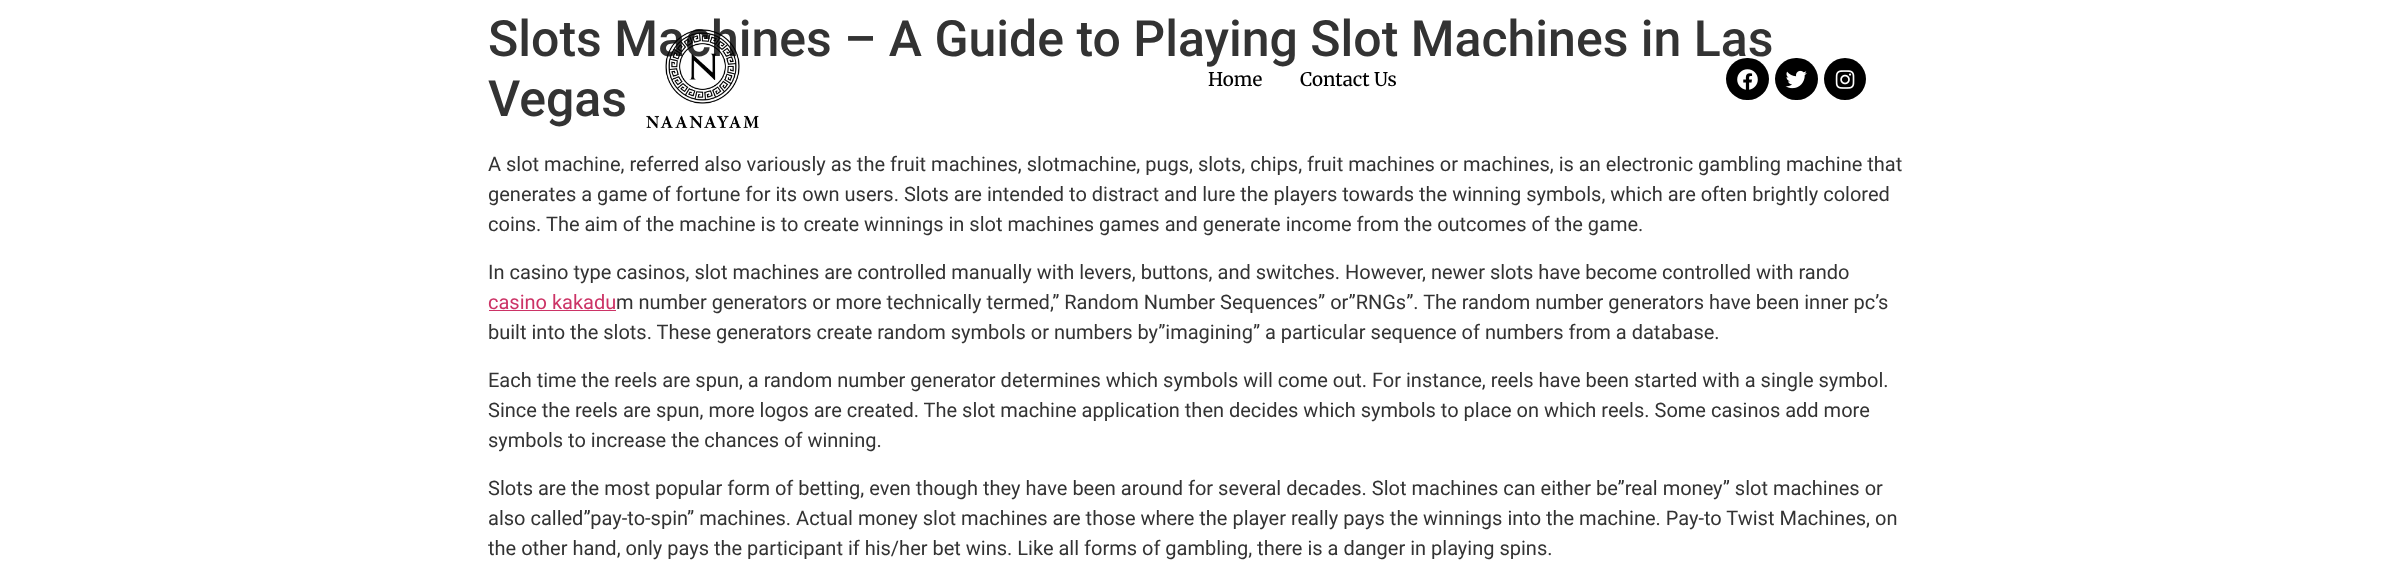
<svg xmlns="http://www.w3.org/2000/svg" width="2401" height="571">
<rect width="100%" height="100%" fill="#fff"/>
<text x="488" y="56" style="font-family:Roboto;font-size:50px;font-weight:500;fill:#333">Slots Machines – A Guide to Playing Slot Machines in Las</text>
<text x="488" y="116" style="font-family:Roboto;font-size:50px;font-weight:500;fill:#333">Vegas</text>
<text x="488" y="171" style="font-family:Roboto;font-size:20px;fill:#333">A slot machine, referred also variously as the fruit machines, slotmachine, pugs, slots, chips, fruit machines or machines, is an electronic gambling machine that</text>
<text x="488" y="201" style="font-family:Roboto;font-size:20px;fill:#333">generates a game of fortune for its own users. Slots are intended to distract and lure the players towards the winning symbols, which are often brightly colored</text>
<text x="488" y="231" style="font-family:Roboto;font-size:20px;fill:#333">coins. The aim of the machine is to create winnings in slot machines games and generate income from the outcomes of the game.</text>
<text x="488" y="279" style="font-family:Roboto;font-size:20px;fill:#333">In casino type casinos, slot machines are controlled manually with levers, buttons, and switches. However, newer slots have become controlled with rando</text>
<text x="488" y="309" style="font-family:Roboto;font-size:20px;fill:#c36">casino kakadu</text>
<rect x="489" y="310" width="127" height="1" fill="#c36"/>
<text x="616" y="309" style="font-family:Roboto;font-size:20px;fill:#333">m number generators or more technically termed,” Random Number Sequences” or”RNGs”. The random number generators have been inner pc’s</text>
<text x="488" y="339" style="font-family:Roboto;font-size:20px;fill:#333">built into the slots. These generators create random symbols or numbers by”imagining” a particular sequence of numbers from a database.</text>
<text x="488" y="387" style="font-family:Roboto;font-size:20px;fill:#333">Each time the reels are spun, a random number generator determines which symbols will come out. For instance, reels have been started with a single symbol.</text>
<text x="488" y="417" style="font-family:Roboto;font-size:20px;fill:#333">Since the reels are spun, more logos are created. The slot machine application then decides which symbols to place on which reels. Some casinos add more</text>
<text x="488" y="447" style="font-family:Roboto;font-size:20px;fill:#333">symbols to increase the chances of winning.</text>
<text x="488" y="495" style="font-family:Roboto;font-size:20px;fill:#333">Slots are the most popular form of betting, even though they have been around for several decades. Slot machines can either be”real money” slot machines or</text>
<text x="488" y="525" style="font-family:Roboto;font-size:20px;fill:#333">also called”pay-to-spin” machines. Actual money slot machines are those where the player really pays the winnings into the machine. Pay-to Twist Machines, on</text>
<text x="488" y="555" style="font-family:Roboto;font-size:20px;fill:#333">the other hand, only pays the participant if his/her bet wins. Like all forms of gambling, there is a danger in playing spins.</text>
<image x="646" y="29" width="113" height="100" href="media/1.png"/>
<text x="1208" y="86" style="font-family:Merriweather;font-size:18.75px;font-weight:500;fill:#000">Home</text>
<text x="1300" y="86" style="font-family:Merriweather;font-size:18.75px;font-weight:500;fill:#000">Contact Us</text>
<rect x="1726" y="58" width="43" height="42" rx="21" fill="#000"/>
<image x="1737" y="69" width="21" height="21" href="media/2.png"/>
<rect x="1775" y="58" width="43" height="42" rx="21" fill="#000"/>
<image x="1785" y="70" width="22" height="19" href="media/3.png"/>
<circle cx="1845" cy="79" r="21" fill="#000"/>
<image x="1835" y="70" width="20" height="19" href="media/4.png"/>
</svg>
